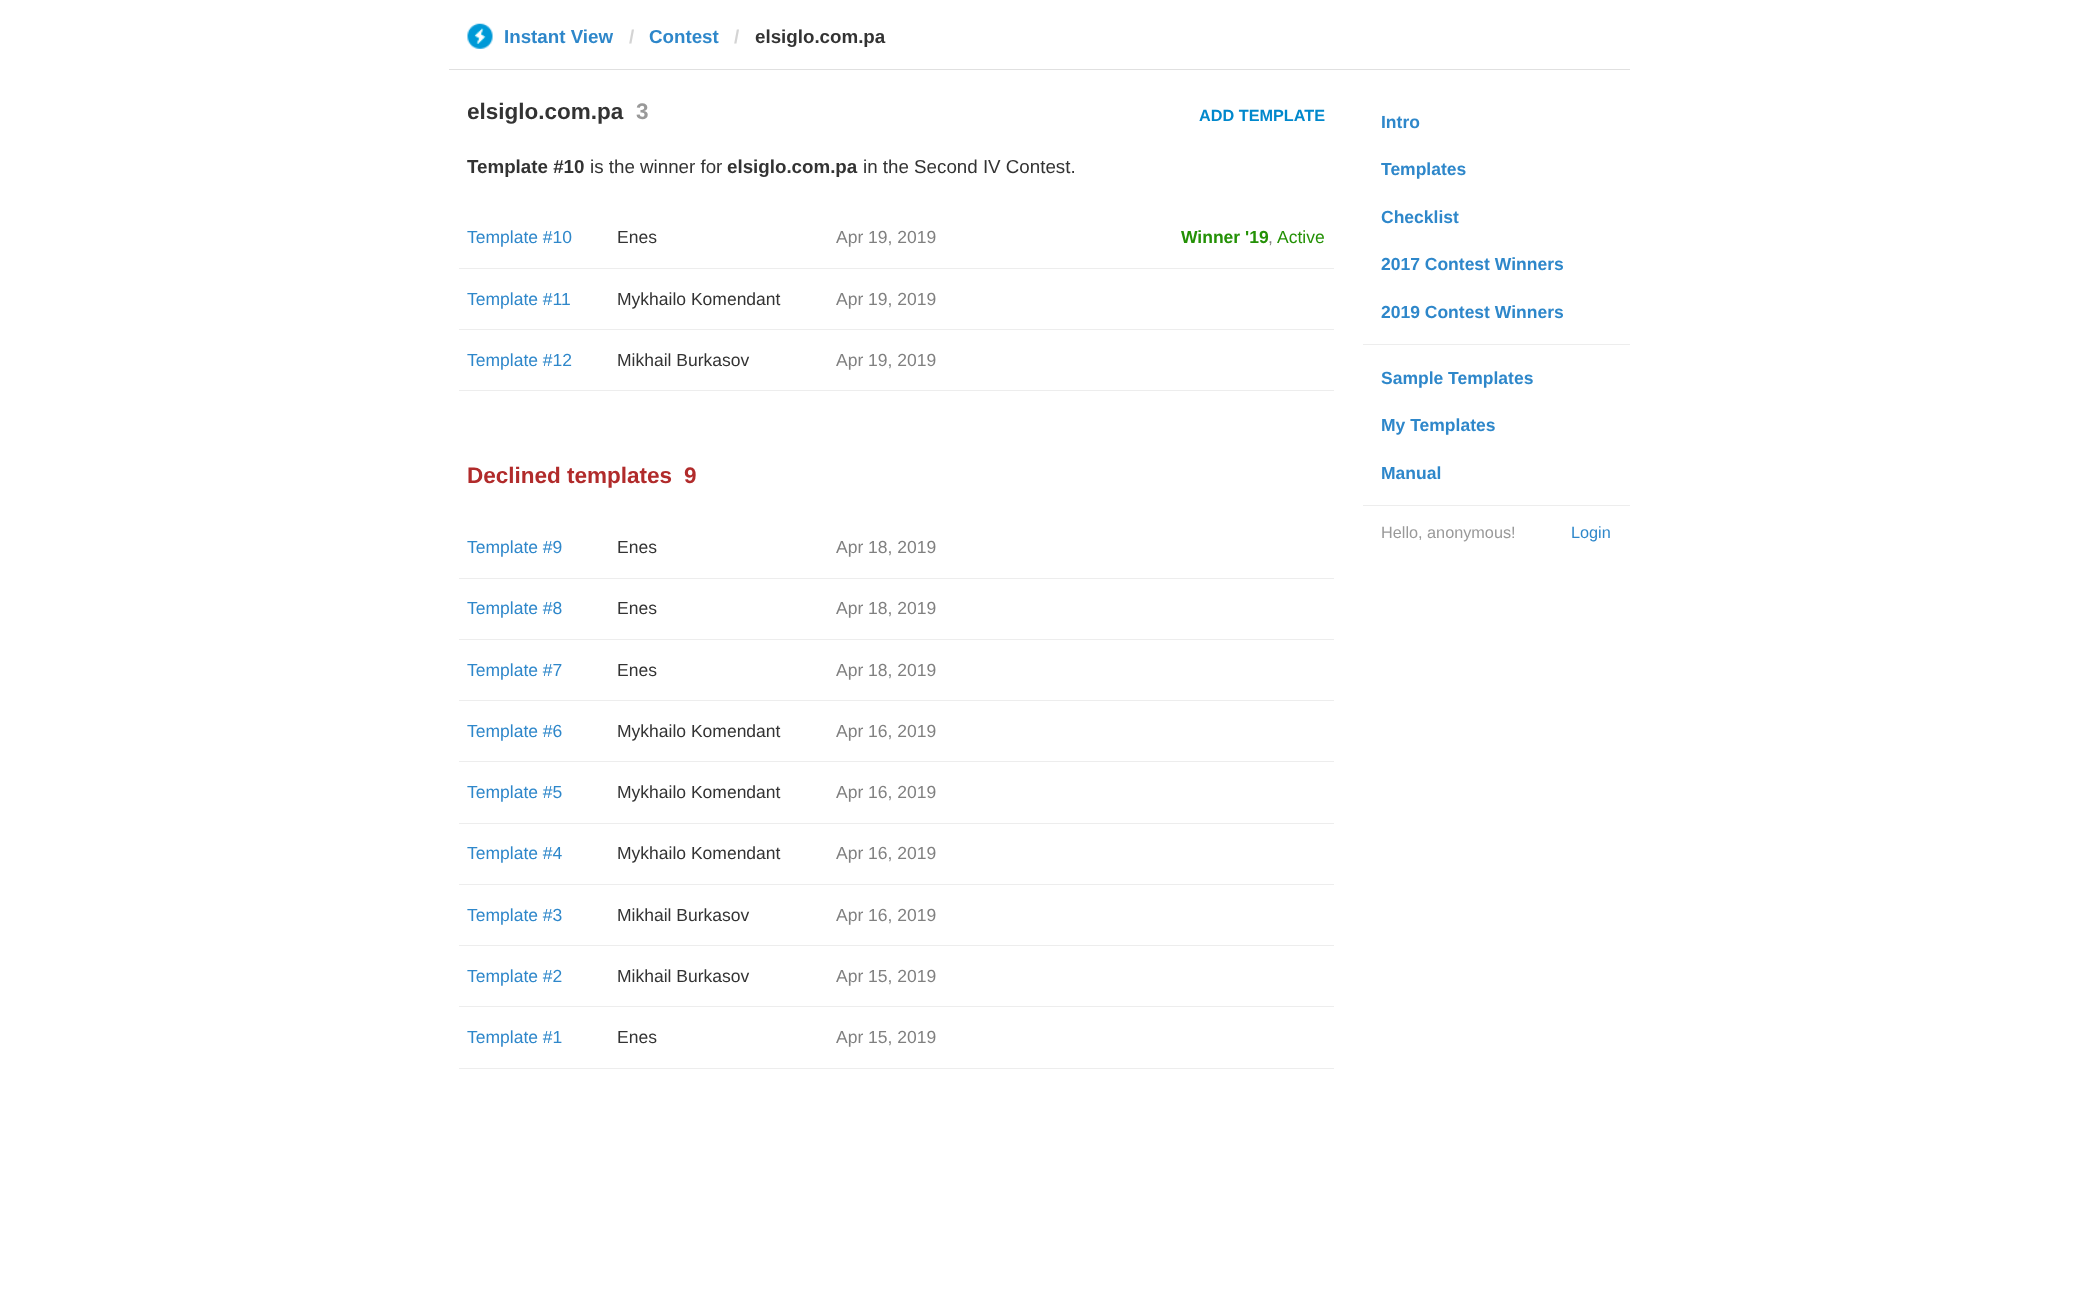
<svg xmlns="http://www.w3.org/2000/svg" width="2077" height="1312">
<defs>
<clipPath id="clip1"><rect x="468" y="85" width="857" height="68"/></clipPath>
</defs>
<rect width="100%" height="100%" fill="#fff"/>
<rect x="449" y="69" width="1181" height="1" fill="#e0e0e0"/>
<image x="467" y="23" width="26" height="26" href="media/1.png"/>
<text x="504" y="43" style="font-family:Liberation Sans;font-size:18.75px;font-weight:bold;fill:#2e87ca">Instant View</text>
<text x="629" y="43" style="font-family:Liberation Sans;font-size:18.75px;font-weight:bold;fill:#d4d4d4">/</text>
<text x="649" y="43" style="font-family:Liberation Sans;font-size:18.75px;font-weight:bold;fill:#2e87ca">Contest</text>
<text x="734" y="43" style="font-family:Liberation Sans;font-size:18.75px;font-weight:bold;fill:#d4d4d4">/</text>
<text x="755" y="43" style="font-family:Liberation Sans;font-size:18.75px;font-weight:bold;fill:#333">elsiglo.com.pa</text>
<g clip-path="url(#clip1)">
<text x="467" y="119" style="font-family:Liberation Sans;font-size:22.5px;font-weight:bold;fill:#333">elsiglo.com.pa</text>
</g>
<text x="636" y="119" style="font-family:Liberation Sans;font-size:22.5px;font-weight:bold;fill:#999">3</text>
<text x="1199" y="121" style="font-family:Liberation Sans;font-size:16.25px;font-weight:bold;fill:#08c">ADD TEMPLATE</text>
<text x="467" y="173" style="font-family:Liberation Sans;font-size:18.75px;font-weight:bold;fill:#333">Template #10</text>
<text x="590" y="173" style="font-family:Liberation Sans;font-size:18.75px;fill:#333">is the winner for</text>
<text x="727" y="173" style="font-family:Liberation Sans;font-size:18.75px;font-weight:bold;fill:#333">elsiglo.com.pa</text>
<text x="863" y="173" style="font-family:Liberation Sans;font-size:18.75px;fill:#333">in the Second IV Contest.</text>
<rect x="459" y="268" width="875" height="1" fill="#ededed"/>
<text x="467" y="243" style="font-family:Liberation Sans;font-size:17.5px;fill:#2e87ca">Template #10</text>
<text x="617" y="243" style="font-family:Liberation Sans;font-size:17.5px;fill:#333">Enes</text>
<text x="836" y="243" style="font-family:Liberation Sans;font-size:17.5px;fill:#808080">Apr 19, 2019</text>
<text x="1181" y="243" style="font-family:Liberation Sans;font-size:17.5px;font-weight:bold;fill:#249106">Winner '19</text>
<text x="1268" y="243" style="font-family:Liberation Sans;font-size:17.5px;fill:#808080">,</text>
<text x="1277" y="243" style="font-family:Liberation Sans;font-size:17.5px;fill:#249106">Active</text>
<rect x="459" y="329" width="875" height="1" fill="#ededed"/>
<text x="467" y="305" style="font-family:Liberation Sans;font-size:17.5px;fill:#2e87ca">Template #11</text>
<text x="617" y="305" style="font-family:Liberation Sans;font-size:17.5px;fill:#333">Mykhailo Komendant</text>
<text x="836" y="305" style="font-family:Liberation Sans;font-size:17.5px;fill:#808080">Apr 19, 2019</text>
<rect x="459" y="390" width="875" height="1" fill="#ededed"/>
<text x="467" y="366" style="font-family:Liberation Sans;font-size:17.5px;fill:#2e87ca">Template #12</text>
<text x="617" y="366" style="font-family:Liberation Sans;font-size:17.5px;fill:#333">Mikhail Burkasov</text>
<text x="836" y="366" style="font-family:Liberation Sans;font-size:17.5px;fill:#808080">Apr 19, 2019</text>
<text x="467" y="483" style="font-family:Liberation Sans;font-size:22.5px;font-weight:bold;fill:#b12b2b">Declined templates</text>
<text x="684" y="483" style="font-family:Liberation Sans;font-size:22.5px;font-weight:bold;fill:#b12b2b">9</text>
<rect x="459" y="578" width="875" height="1" fill="#ededed"/>
<text x="467" y="553" style="font-family:Liberation Sans;font-size:17.5px;fill:#2e87ca">Template #9</text>
<text x="617" y="553" style="font-family:Liberation Sans;font-size:17.5px;fill:#333">Enes</text>
<text x="836" y="553" style="font-family:Liberation Sans;font-size:17.5px;fill:#808080">Apr 18, 2019</text>
<rect x="459" y="639" width="875" height="1" fill="#ededed"/>
<text x="467" y="614" style="font-family:Liberation Sans;font-size:17.5px;fill:#2e87ca">Template #8</text>
<text x="617" y="614" style="font-family:Liberation Sans;font-size:17.5px;fill:#333">Enes</text>
<text x="836" y="614" style="font-family:Liberation Sans;font-size:17.5px;fill:#808080">Apr 18, 2019</text>
<rect x="459" y="700" width="875" height="1" fill="#ededed"/>
<text x="467" y="676" style="font-family:Liberation Sans;font-size:17.5px;fill:#2e87ca">Template #7</text>
<text x="617" y="676" style="font-family:Liberation Sans;font-size:17.5px;fill:#333">Enes</text>
<text x="836" y="676" style="font-family:Liberation Sans;font-size:17.5px;fill:#808080">Apr 18, 2019</text>
<rect x="459" y="761" width="875" height="1" fill="#ededed"/>
<text x="467" y="737" style="font-family:Liberation Sans;font-size:17.5px;fill:#2e87ca">Template #6</text>
<text x="617" y="737" style="font-family:Liberation Sans;font-size:17.5px;fill:#333">Mykhailo Komendant</text>
<text x="836" y="737" style="font-family:Liberation Sans;font-size:17.5px;fill:#808080">Apr 16, 2019</text>
<rect x="459" y="823" width="875" height="1" fill="#ededed"/>
<text x="467" y="798" style="font-family:Liberation Sans;font-size:17.5px;fill:#2e87ca">Template #5</text>
<text x="617" y="798" style="font-family:Liberation Sans;font-size:17.5px;fill:#333">Mykhailo Komendant</text>
<text x="836" y="798" style="font-family:Liberation Sans;font-size:17.5px;fill:#808080">Apr 16, 2019</text>
<rect x="459" y="884" width="875" height="1" fill="#ededed"/>
<text x="467" y="859" style="font-family:Liberation Sans;font-size:17.5px;fill:#2e87ca">Template #4</text>
<text x="617" y="859" style="font-family:Liberation Sans;font-size:17.5px;fill:#333">Mykhailo Komendant</text>
<text x="836" y="859" style="font-family:Liberation Sans;font-size:17.5px;fill:#808080">Apr 16, 2019</text>
<rect x="459" y="945" width="875" height="1" fill="#ededed"/>
<text x="467" y="921" style="font-family:Liberation Sans;font-size:17.5px;fill:#2e87ca">Template #3</text>
<text x="617" y="921" style="font-family:Liberation Sans;font-size:17.5px;fill:#333">Mikhail Burkasov</text>
<text x="836" y="921" style="font-family:Liberation Sans;font-size:17.5px;fill:#808080">Apr 16, 2019</text>
<rect x="459" y="1006" width="875" height="1" fill="#ededed"/>
<text x="467" y="982" style="font-family:Liberation Sans;font-size:17.5px;fill:#2e87ca">Template #2</text>
<text x="617" y="982" style="font-family:Liberation Sans;font-size:17.5px;fill:#333">Mikhail Burkasov</text>
<text x="836" y="982" style="font-family:Liberation Sans;font-size:17.5px;fill:#808080">Apr 15, 2019</text>
<rect x="459" y="1068" width="875" height="1" fill="#ededed"/>
<text x="467" y="1043" style="font-family:Liberation Sans;font-size:17.5px;fill:#2e87ca">Template #1</text>
<text x="617" y="1043" style="font-family:Liberation Sans;font-size:17.5px;fill:#333">Enes</text>
<text x="836" y="1043" style="font-family:Liberation Sans;font-size:17.5px;fill:#808080">Apr 15, 2019</text>
<text x="1381" y="128" style="font-family:Liberation Sans;font-size:17.5px;font-weight:bold;fill:#2e87ca">Intro</text>
<text x="1381" y="175" style="font-family:Liberation Sans;font-size:17.5px;font-weight:bold;fill:#2e87ca">Templates</text>
<text x="1381" y="223" style="font-family:Liberation Sans;font-size:17.5px;font-weight:bold;fill:#2e87ca">Checklist</text>
<text x="1381" y="270" style="font-family:Liberation Sans;font-size:17.5px;font-weight:bold;fill:#2e87ca">2017 Contest Winners</text>
<text x="1381" y="318" style="font-family:Liberation Sans;font-size:17.5px;font-weight:bold;fill:#2e87ca">2019 Contest Winners</text>
<rect x="1363" y="344" width="267" height="1" fill="#ededed"/>
<text x="1381" y="384" style="font-family:Liberation Sans;font-size:17.5px;font-weight:bold;fill:#2e87ca">Sample Templates</text>
<text x="1381" y="431" style="font-family:Liberation Sans;font-size:17.5px;font-weight:bold;fill:#2e87ca">My Templates</text>
<text x="1381" y="479" style="font-family:Liberation Sans;font-size:17.5px;font-weight:bold;fill:#2e87ca">Manual</text>
<rect x="1363" y="505" width="267" height="1" fill="#ededed"/>
<text x="1381" y="538" style="font-family:Liberation Sans;font-size:16.25px;fill:#999">Hello, anonymous!</text>
<text x="1571" y="538" style="font-family:Liberation Sans;font-size:16.25px;fill:#2e87ca">Login</text>
</svg>
